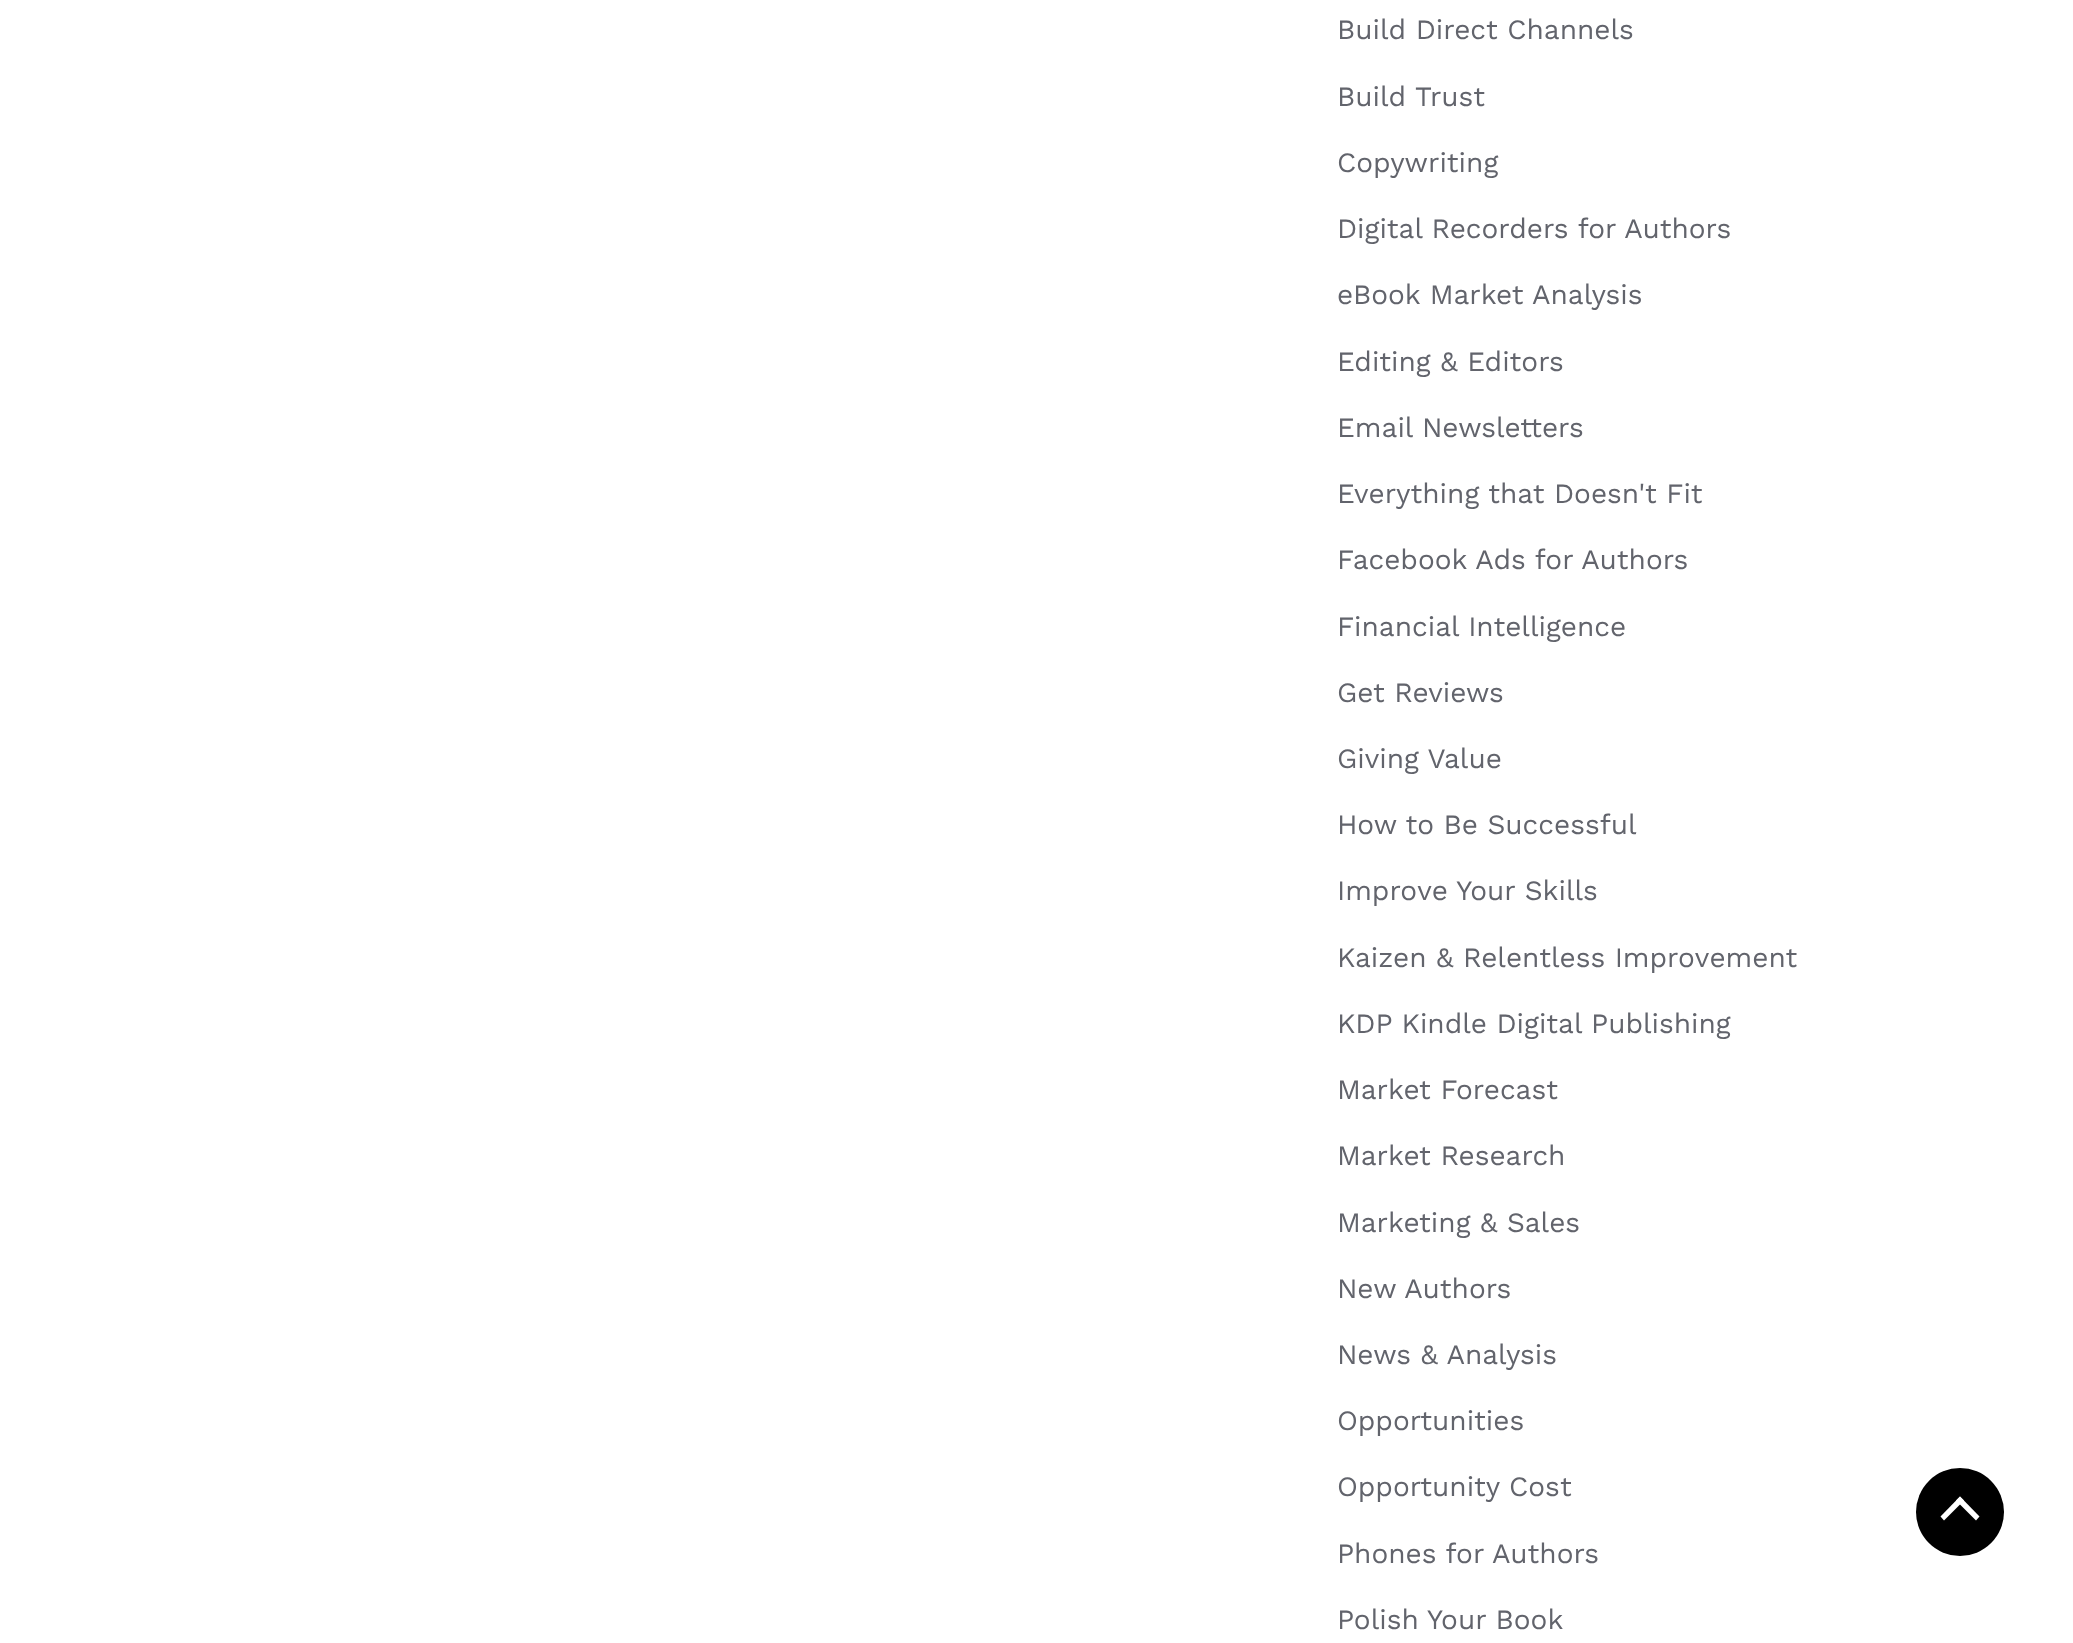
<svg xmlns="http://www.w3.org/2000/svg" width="2073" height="1643">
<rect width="100%" height="100%" fill="#fff"/>
<text x="1337" y="39" style="font-family:Work Sans;font-size:28px;fill:#62646c">Build Direct Channels</text>
<text x="1337" y="106" style="font-family:Work Sans;font-size:28px;fill:#62646c">Build Trust</text>
<text x="1337" y="172" style="font-family:Work Sans;font-size:28px;fill:#62646c">Copywriting</text>
<text x="1337" y="238" style="font-family:Work Sans;font-size:28px;fill:#62646c">Digital Recorders for Authors</text>
<text x="1337" y="304" style="font-family:Work Sans;font-size:28px;fill:#62646c">eBook Market Analysis</text>
<text x="1337" y="371" style="font-family:Work Sans;font-size:28px;fill:#62646c">Editing &amp; Editors</text>
<text x="1337" y="437" style="font-family:Work Sans;font-size:28px;fill:#62646c">Email Newsletters</text>
<text x="1337" y="503" style="font-family:Work Sans;font-size:28px;fill:#62646c">Everything that Doesn't Fit</text>
<text x="1337" y="569" style="font-family:Work Sans;font-size:28px;fill:#62646c">Facebook Ads for Authors</text>
<text x="1337" y="636" style="font-family:Work Sans;font-size:28px;fill:#62646c">Financial Intelligence</text>
<text x="1337" y="702" style="font-family:Work Sans;font-size:28px;fill:#62646c">Get Reviews</text>
<text x="1337" y="768" style="font-family:Work Sans;font-size:28px;fill:#62646c">Giving Value</text>
<text x="1337" y="834" style="font-family:Work Sans;font-size:28px;fill:#62646c">How to Be Successful</text>
<text x="1337" y="900" style="font-family:Work Sans;font-size:28px;fill:#62646c">Improve Your Skills</text>
<text x="1337" y="967" style="font-family:Work Sans;font-size:28px;fill:#62646c">Kaizen &amp; Relentless Improvement</text>
<text x="1337" y="1033" style="font-family:Work Sans;font-size:28px;fill:#62646c">KDP Kindle Digital Publishing</text>
<text x="1337" y="1099" style="font-family:Work Sans;font-size:28px;fill:#62646c">Market Forecast</text>
<text x="1337" y="1165" style="font-family:Work Sans;font-size:28px;fill:#62646c">Market Research</text>
<text x="1337" y="1232" style="font-family:Work Sans;font-size:28px;fill:#62646c">Marketing &amp; Sales</text>
<text x="1337" y="1298" style="font-family:Work Sans;font-size:28px;fill:#62646c">New Authors</text>
<text x="1337" y="1364" style="font-family:Work Sans;font-size:28px;fill:#62646c">News &amp; Analysis</text>
<text x="1337" y="1430" style="font-family:Work Sans;font-size:28px;fill:#62646c">Opportunities</text>
<text x="1337" y="1496" style="font-family:Work Sans;font-size:28px;fill:#62646c">Opportunity Cost</text>
<text x="1337" y="1563" style="font-family:Work Sans;font-size:28px;fill:#62646c">Phones for Authors</text>
<text x="1337" y="1629" style="font-family:Work Sans;font-size:28px;fill:#62646c">Polish Your Book</text>
<circle cx="1960" cy="1512" r="44" fill="#000"/>
<path d="M1956 1500.5l4-4l19.5 20l-3.5 4z" fill="#fff"/>
<path d="M1960 1496.5l4 4l-20 20l-3.5-4z" fill="#fff"/>
</svg>
